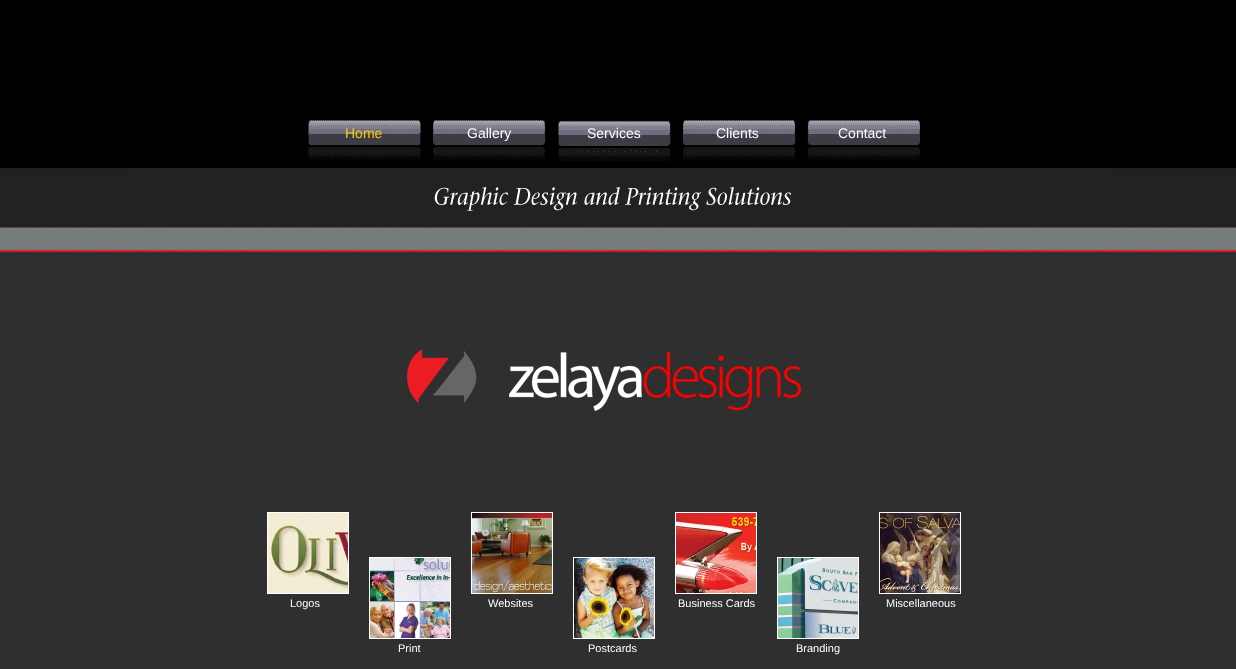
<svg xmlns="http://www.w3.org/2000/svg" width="1236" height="669">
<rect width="100%" height="100%" fill="#2f2f2f"/>
<image x="0" y="0" width="1236" height="252" href="media/1.png"/>
<image x="128" y="0" width="980" height="411" href="media/2.png"/>
<text x="345" y="138" style="font-family:Liberation Sans;font-size:14px;fill:#fdca0b">Home</text>
<text x="467" y="138" style="font-family:Liberation Sans;font-size:14px;fill:#fff">Gallery</text>
<text x="587" y="138" style="font-family:Liberation Sans;font-size:14px;fill:#fff">Services</text>
<text x="716" y="138" style="font-family:Liberation Sans;font-size:14px;fill:#fff">Clients</text>
<text x="838" y="138" style="font-family:Liberation Sans;font-size:14px;fill:#fff">Contact</text>
<image x="267" y="512" width="82" height="82" href="media/3.png"/>
<image x="369" y="557" width="82" height="82" href="media/4.png"/>
<image x="471" y="512" width="82" height="82" href="media/5.png"/>
<image x="573" y="557" width="82" height="82" href="media/6.png"/>
<image x="675" y="512" width="82" height="82" href="media/7.png"/>
<image x="777" y="557" width="82" height="82" href="media/8.png"/>
<image x="879" y="512" width="82" height="82" href="media/9.png"/>
<text x="290" y="607" style="font-family:Liberation Sans;font-size:11px;fill:#fff">Logos</text>
<text x="488" y="607" style="font-family:Liberation Sans;font-size:11px;fill:#fff">Websites</text>
<text x="678" y="607" style="font-family:Liberation Sans;font-size:11px;fill:#fff">Business Cards</text>
<text x="886" y="607" style="font-family:Liberation Sans;font-size:11px;fill:#fff">Miscellaneous</text>
<text x="398" y="652" style="font-family:Liberation Sans;font-size:11px;fill:#fff">Print</text>
<text x="588" y="652" style="font-family:Liberation Sans;font-size:11px;fill:#fff">Postcards</text>
<text x="796" y="652" style="font-family:Liberation Sans;font-size:11px;fill:#fff">Branding</text>
</svg>
